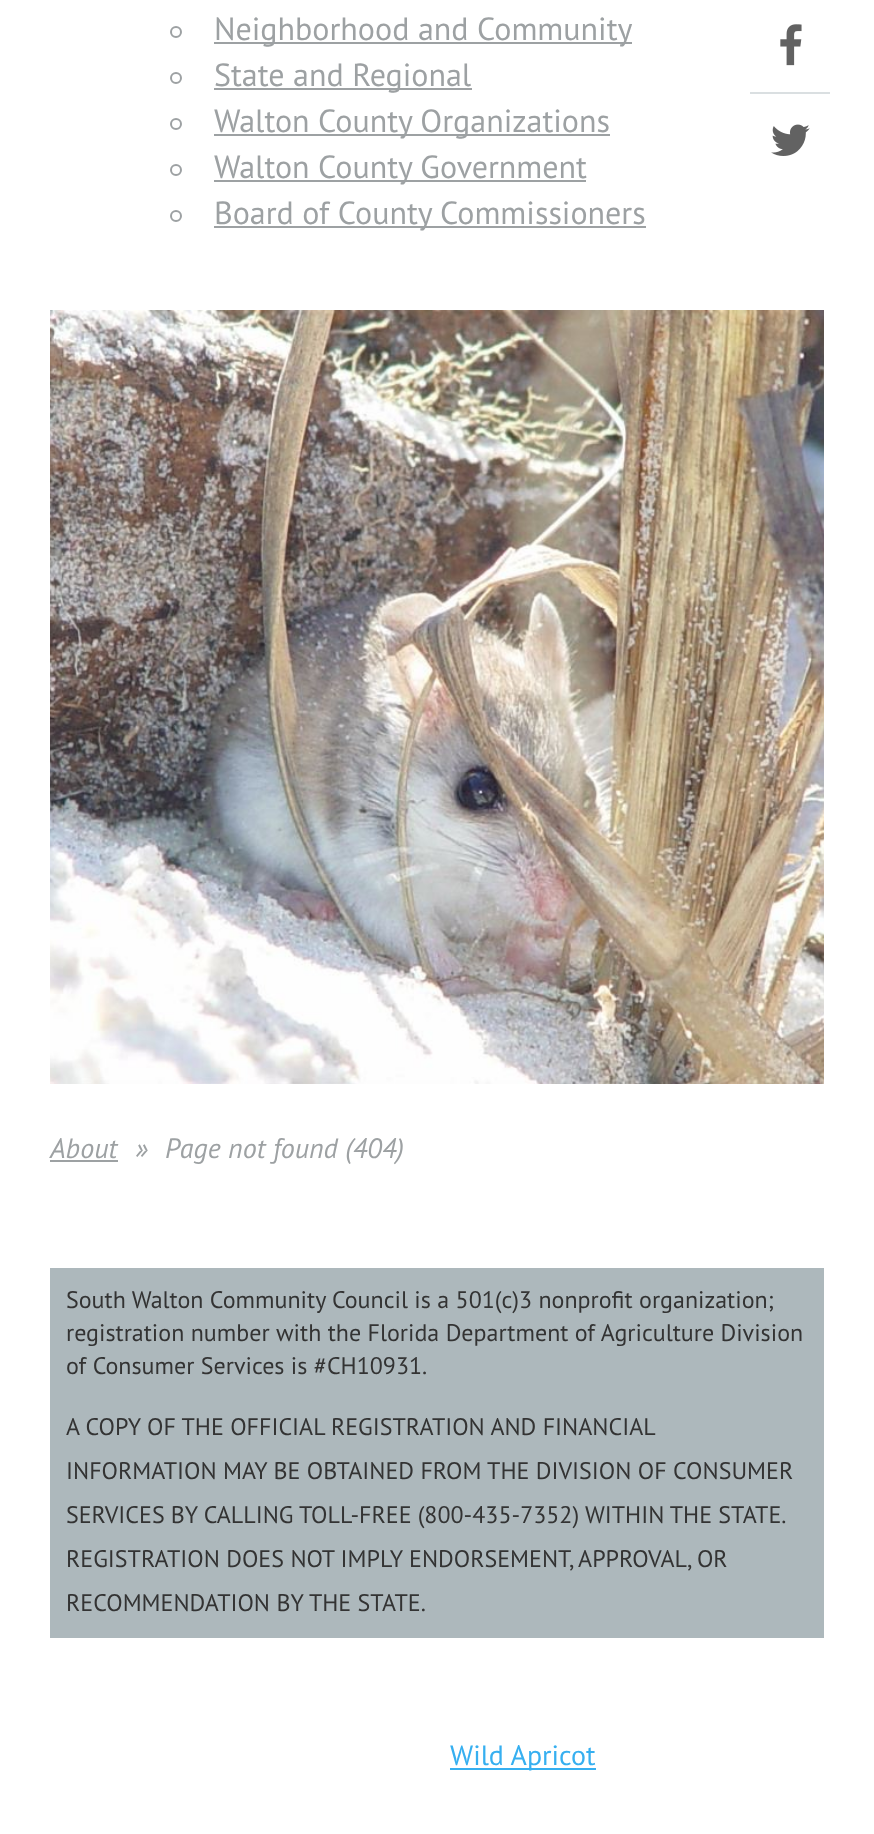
<svg xmlns="http://www.w3.org/2000/svg" width="874" height="1834">
<rect width="100%" height="100%" fill="#fff"/>
<circle cx="176" cy="32" r="5" fill="none" stroke="#9da1a3" stroke-width="2"/>
<rect x="214" y="42" width="418" height="2" fill="#9da1a3"/>
<text x="214" y="40" style="font-family:PT Sans;font-size:32px;fill:#9da1a3">Neighborhood and Community</text>
<circle cx="176" cy="78" r="5" fill="none" stroke="#9da1a3" stroke-width="2"/>
<rect x="214" y="88" width="258" height="2" fill="#9da1a3"/>
<text x="214" y="86" style="font-family:PT Sans;font-size:32px;fill:#9da1a3">State and Regional</text>
<circle cx="176" cy="124" r="5" fill="none" stroke="#9da1a3" stroke-width="2"/>
<rect x="214" y="134" width="396" height="2" fill="#9da1a3"/>
<text x="214" y="132" style="font-family:PT Sans;font-size:32px;fill:#9da1a3">Walton County Organizations</text>
<circle cx="176" cy="170" r="5" fill="none" stroke="#9da1a3" stroke-width="2"/>
<rect x="214" y="180" width="372" height="2" fill="#9da1a3"/>
<text x="214" y="178" style="font-family:PT Sans;font-size:32px;fill:#9da1a3">Walton County Government</text>
<circle cx="176" cy="216" r="5" fill="none" stroke="#9da1a3" stroke-width="2"/>
<rect x="214" y="226" width="432" height="2" fill="#9da1a3"/>
<text x="214" y="224" style="font-family:PT Sans;font-size:32px;fill:#9da1a3">Board of County Commissioners</text>
<image x="50" y="310" width="774" height="774" href="media/1.png"/>
<text x="50" y="1158" style="font-family:PT Sans;font-size:28px;font-style:italic;fill:#9da1a3">About</text>
<rect x="50" y="1160" width="68" height="2" fill="#9da1a3"/>
<text x="135" y="1158" style="font-family:PT Sans;font-size:28px;font-style:italic;fill:#9da1a3">»</text>
<text x="165" y="1158" style="font-family:PT Sans;font-size:28px;font-style:italic;fill:#9da1a3">Page not found (404)</text>
<rect x="750" y="92" width="80" height="2" fill="#dadfe1"/>
<image x="780" y="24" width="22" height="42" href="media/2.png"/>
<image x="771" y="124" width="39" height="32" href="media/3.png"/>
<rect x="50" y="1268" width="774" height="370" fill="#adb8bc"/>
<text x="66" y="1308" style="font-family:PT Sans;font-size:24px;fill:#333">South Walton Community Council is a 501(c)3 nonprofit organization;</text>
<text x="66" y="1341" style="font-family:PT Sans;font-size:24px;fill:#333">registration number with the Florida Department of Agriculture Division</text>
<text x="66" y="1374" style="font-family:PT Sans;font-size:24px;fill:#333">of Consumer Services is #CH10931.</text>
<text x="66" y="1435" style="font-family:PT Sans;font-size:24px;fill:#333">A COPY OF THE OFFICIAL REGISTRATION AND FINANCIAL</text>
<text x="66" y="1479" style="font-family:PT Sans;font-size:24px;fill:#333">INFORMATION MAY BE OBTAINED FROM THE DIVISION OF CONSUMER</text>
<text x="66" y="1523" word-spacing="-0.25" style="font-family:PT Sans;font-size:24px;fill:#333">SERVICES BY CALLING TOLL-FREE (800-435-7352) WITHIN THE STATE.</text>
<text x="66" y="1567" style="font-family:PT Sans;font-size:24px;fill:#333">REGISTRATION DOES NOT IMPLY ENDORSEMENT, APPROVAL, OR</text>
<text x="66" y="1611" style="font-family:PT Sans;font-size:24px;fill:#333">RECOMMENDATION BY THE STATE.</text>
<rect x="450" y="1768" width="146" height="2" fill="#36aff0"/>
<text x="450" y="1765" style="font-family:PT Sans;font-size:28px;fill:#36aff0">Wild Apricot</text>
</svg>
